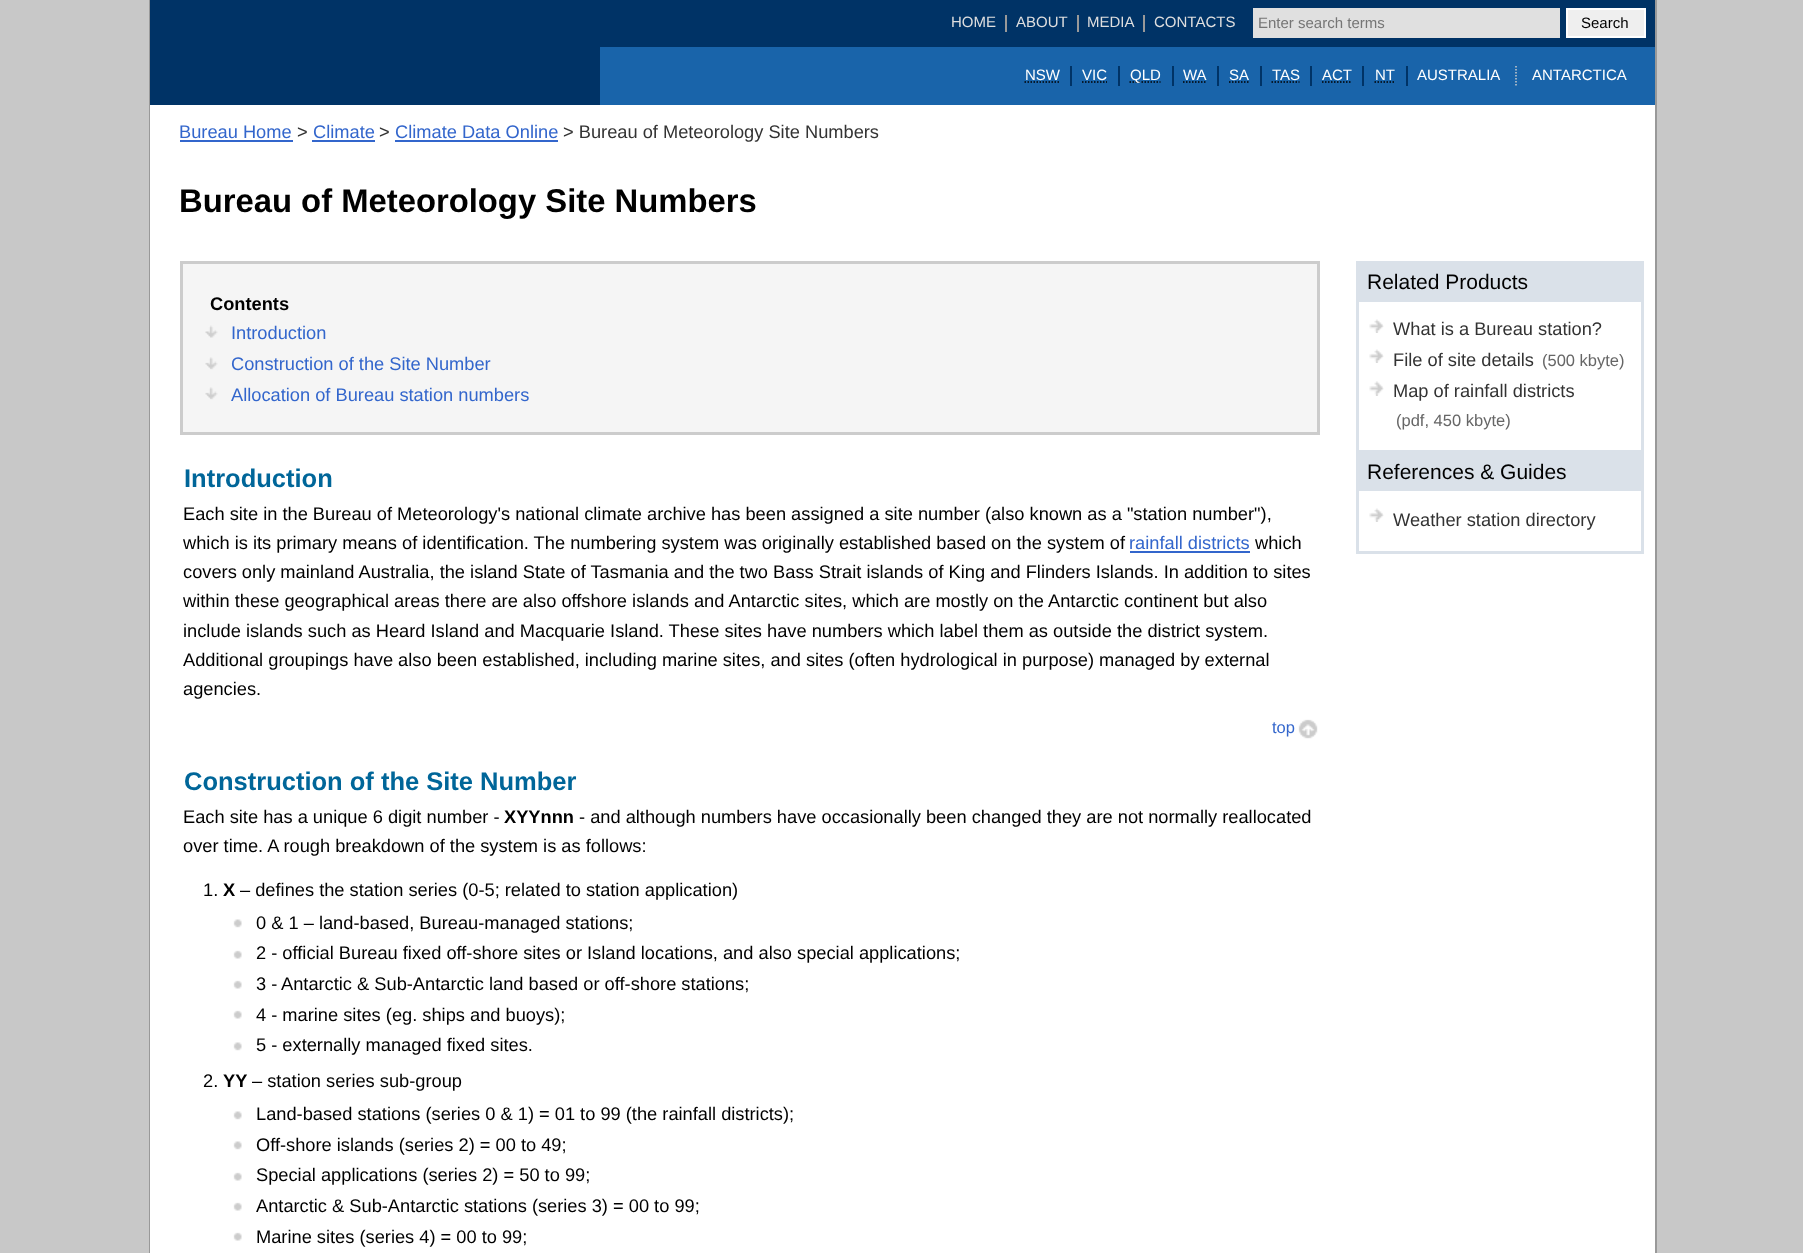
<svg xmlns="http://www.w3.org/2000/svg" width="1803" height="1253">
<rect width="100%" height="100%" fill="#c8c8c8"/>
<rect x="1655" width="2" height="1253" fill="#999"/>
<rect x="149" width="1" height="1253" fill="#999"/>
<rect x="150" width="1505" height="105" fill="#036"/>
<rect x="1005" y="15" width="2" height="17" fill="#999"/>
<text x="951" y="27" style="font-family:Liberation Sans;font-size:15px;fill:#dfdfdf">HOME</text>
<rect x="1077" y="15" width="2" height="17" fill="#999"/>
<text x="1016" y="27" style="font-family:Liberation Sans;font-size:15px;fill:#dfdfdf">ABOUT</text>
<rect x="1143" y="15" width="2" height="17" fill="#999"/>
<text x="1087" y="27" style="font-family:Liberation Sans;font-size:15px;fill:#dfdfdf">MEDIA</text>
<text x="1154" y="27" style="font-family:Liberation Sans;font-size:15px;fill:#dfdfdf">CONTACTS</text>
<rect x="1253" y="8" width="307" height="30" fill="#e0e0e0"/>
<text x="1258" y="28" style="font-family:Liberation Sans;font-size:15px;fill:#757575">Enter search terms</text>
<rect x="1567" y="9" width="78" height="28" fill="#efefef" stroke="#fff" stroke-width="2"/>
<text x="1581" y="28" style="font-family:Liberation Sans;font-size:15px;fill:#000">Search</text>
<rect x="600" y="47" width="1055" height="58" fill="#1964aa"/>
<rect x="1070" y="66" width="2" height="20" fill="#036"/>
<text x="1025" y="80" style="font-family:Liberation Sans;font-size:15px;fill:#fff">NSW</text>
<path d="M1024.5 82h35" fill="none" stroke="#000" stroke-width="1.5" stroke-dasharray="1.5 1.5"/>
<rect x="1118" y="66" width="2" height="20" fill="#036"/>
<text x="1082" y="80" style="font-family:Liberation Sans;font-size:15px;fill:#fff">VIC</text>
<path d="M1082 82h25" fill="none" stroke="#000" stroke-width="1.5" stroke-dasharray="1.5 1.5"/>
<rect x="1172" y="66" width="2" height="20" fill="#036"/>
<path d="M1129.5 82h31" fill="none" stroke="#000" stroke-width="1.5" stroke-dasharray="1.5 1.5"/>
<text x="1130" y="80" style="font-family:Liberation Sans;font-size:15px;fill:#fff">QLD</text>
<rect x="1217" y="66" width="2" height="20" fill="#036"/>
<text x="1183" y="80" style="font-family:Liberation Sans;font-size:15px;fill:#fff">WA</text>
<path d="M1183 82h23.5" fill="none" stroke="#000" stroke-width="1.5" stroke-dasharray="1.5 1.5"/>
<rect x="1260" y="66" width="2" height="20" fill="#036"/>
<text x="1229" y="80" style="font-family:Liberation Sans;font-size:15px;fill:#fff">SA</text>
<path d="M1229 82h20" fill="none" stroke="#000" stroke-width="1.5" stroke-dasharray="1.5 1.5"/>
<rect x="1310" y="66" width="2" height="20" fill="#036"/>
<text x="1272" y="80" style="font-family:Liberation Sans;font-size:15px;fill:#fff">TAS</text>
<path d="M1271.5 82h28" fill="none" stroke="#000" stroke-width="1.5" stroke-dasharray="1.5 1.5"/>
<rect x="1362" y="66" width="2" height="20" fill="#036"/>
<text x="1322" y="80" style="font-family:Liberation Sans;font-size:15px;fill:#fff">ACT</text>
<path d="M1322 82h30" fill="none" stroke="#000" stroke-width="1.5" stroke-dasharray="1.5 1.5"/>
<rect x="1406" y="66" width="2" height="20" fill="#036"/>
<text x="1375" y="80" style="font-family:Liberation Sans;font-size:15px;fill:#fff">NT</text>
<path d="M1374.5 82h20" fill="none" stroke="#000" stroke-width="1.5" stroke-dasharray="1.5 1.5"/>
<path d="M1516 66v19.5" fill="none" stroke="#ccc" stroke-width="1.5" stroke-dasharray="1.5 1.5"/>
<text x="1417" y="80" style="font-family:Liberation Sans;font-size:15px;fill:#fff">AUSTRALIA</text>
<text x="1532" y="80" style="font-family:Liberation Sans;font-size:15px;fill:#fff">ANTARCTICA</text>
<rect x="150" y="105" width="1505" height="1148" fill="#fff"/>
<text x="179" y="138" style="font-family:Liberation Sans;font-size:18.25px;fill:#36c">Bureau Home</text>
<rect x="180" y="140" width="113" height="2" fill="#36c"/>
<text x="297" y="138" style="font-family:Liberation Sans;font-size:18.25px;fill:#333">&gt;</text>
<text x="313" y="138" style="font-family:Liberation Sans;font-size:18.25px;fill:#36c">Climate</text>
<rect x="312" y="140" width="63" height="2" fill="#36c"/>
<text x="379" y="138" style="font-family:Liberation Sans;font-size:18.25px;fill:#333">&gt;</text>
<text x="395" y="138" style="font-family:Liberation Sans;font-size:18.25px;fill:#36c">Climate Data Online</text>
<rect x="395" y="140" width="163" height="2" fill="#36c"/>
<text x="563" y="138" style="font-family:Liberation Sans;font-size:18.25px;fill:#333">&gt; Bureau of Meteorology Site Numbers</text>
<text x="179" y="212" style="font-family:Liberation Sans;font-size:32.8px;font-weight:bold;fill:#000">Bureau of Meteorology Site Numbers</text>
<rect x="181.5" y="262.5" width="1137" height="171" fill="#f5f5f5" stroke="#ccc" stroke-width="3"/>
<text x="210" y="310" style="font-family:Liberation Sans;font-size:18.25px;font-weight:bold;fill:#000">Contents</text>
<image x="205" y="325" width="13" height="13" href="media/1.png"/>
<text x="231" y="339" style="font-family:Liberation Sans;font-size:18.25px;fill:#36c">Introduction</text>
<image x="205" y="357" width="13" height="13" href="media/2.png"/>
<text x="231" y="370" style="font-family:Liberation Sans;font-size:18.25px;fill:#36c">Construction of the Site Number</text>
<image x="205" y="387" width="13" height="13" href="media/2.png"/>
<text x="231" y="401" style="font-family:Liberation Sans;font-size:18.25px;fill:#36c">Allocation of Bureau station numbers</text>
<text x="184" y="487" style="font-family:Liberation Sans;font-size:25.5px;font-weight:bold;fill:#069">Introduction</text>
<text x="183" y="520" style="font-family:Liberation Sans;font-size:18.25px;fill:#000">Each site in the Bureau of Meteorology's national climate archive has been assigned a site number (also known as a "station number"),</text>
<text x="183" y="549" style="font-family:Liberation Sans;font-size:18.25px;fill:#000">which is its primary means of identification. The numbering system was originally established based on the system of</text>
<text x="1129" y="549" style="font-family:Liberation Sans;font-size:18.25px;fill:#36c">rainfall districts</text>
<rect x="1130" y="551" width="120" height="2" fill="#36c"/>
<text x="1255" y="549" style="font-family:Liberation Sans;font-size:18.25px;fill:#000">which</text>
<text x="183" y="578" style="font-family:Liberation Sans;font-size:18.25px;fill:#000">covers only mainland Australia, the island State of Tasmania and the two Bass Strait islands of King and Flinders Islands. In addition to sites</text>
<text x="183" y="607" style="font-family:Liberation Sans;font-size:18.25px;fill:#000">within these geographical areas there are also offshore islands and Antarctic sites, which are mostly on the Antarctic continent but also</text>
<text x="183" y="637" style="font-family:Liberation Sans;font-size:18.25px;fill:#000">include islands such as Heard Island and Macquarie Island. These sites have numbers which label them as outside the district system.</text>
<text x="183" y="666" style="font-family:Liberation Sans;font-size:18.25px;fill:#000">Additional groupings have also been established, including marine sites, and sites (often hydrological in purpose) managed by external</text>
<text x="183" y="695" style="font-family:Liberation Sans;font-size:18.25px;fill:#000">agencies.</text>
<image x="1298" y="719" width="20" height="20" href="media/3.png"/>
<text x="1272" y="733" style="font-family:Liberation Sans;font-size:16.5px;fill:#36c">top</text>
<text x="184" y="790" style="font-family:Liberation Sans;font-size:25.5px;font-weight:bold;fill:#069">Construction of the Site Number</text>
<text x="183" y="823" style="font-family:Liberation Sans;font-size:18.25px;fill:#000">Each site has a unique 6 digit number -</text>
<text x="504" y="823" style="font-family:Liberation Sans;font-size:18.25px;font-weight:bold;fill:#000">XYYnnn</text>
<text x="579" y="823" style="font-family:Liberation Sans;font-size:18.25px;fill:#000">- and although numbers have occasionally been changed they are not normally reallocated</text>
<text x="183" y="852" style="font-family:Liberation Sans;font-size:18.25px;fill:#000">over time. A rough breakdown of the system is as follows:</text>
<text x="203" y="896" style="font-family:Liberation Sans;font-size:18.25px;fill:#000">1.</text>
<text x="223" y="896" style="font-family:Liberation Sans;font-size:18.25px;font-weight:bold;fill:#000">X</text>
<text x="240" y="896" style="font-family:Liberation Sans;font-size:18.25px;fill:#000">– defines the station series (0-5; related to station application)</text>
<image x="233" y="919" width="9" height="9" href="media/4.png"/>
<text x="256" y="929" style="font-family:Liberation Sans;font-size:18.25px;fill:#000">0 &amp; 1 – land-based, Bureau-managed stations;</text>
<image x="233" y="950" width="9" height="9" href="media/5.png"/>
<text x="256" y="959" style="font-family:Liberation Sans;font-size:18.25px;fill:#000">2 - official Bureau fixed off-shore sites or Island locations, and also special applications;</text>
<image x="233" y="980" width="9" height="9" href="media/5.png"/>
<text x="256" y="990" style="font-family:Liberation Sans;font-size:18.25px;fill:#000">3 -</text>
<text x="281" y="990" style="font-family:Liberation Sans;font-size:18.25px;fill:#000">Antarctic &amp; Sub-Antarctic land based or off-shore stations;</text>
<image x="233" y="1010" width="9" height="9" href="media/5.png"/>
<text x="256" y="1021" style="font-family:Liberation Sans;font-size:18.25px;fill:#000">4 - marine sites (eg. ships and buoys);</text>
<image x="233" y="1042" width="9" height="9" href="media/4.png"/>
<text x="256" y="1051" style="font-family:Liberation Sans;font-size:18.25px;fill:#000">5 - externally managed fixed sites.</text>
<text x="203" y="1087" style="font-family:Liberation Sans;font-size:18.25px;fill:#000">2.</text>
<text x="223" y="1087" style="font-family:Liberation Sans;font-size:18.25px;font-weight:bold;fill:#000">YY</text>
<text x="252" y="1087" style="font-family:Liberation Sans;font-size:18.25px;fill:#000">– station series sub-group</text>
<image x="233" y="1111" width="9" height="9" href="media/4.png"/>
<text x="256" y="1120" style="font-family:Liberation Sans;font-size:18.25px;fill:#000">Land-based stations (series 0 &amp; 1) = 01 to 99 (the rainfall districts);</text>
<image x="233" y="1141" width="9" height="9" href="media/4.png"/>
<text x="256" y="1151" style="font-family:Liberation Sans;font-size:18.25px;fill:#000">Off-shore islands (series 2) = 00 to 49;</text>
<image x="233" y="1172" width="9" height="9" href="media/5.png"/>
<text x="256" y="1181" style="font-family:Liberation Sans;font-size:18.25px;fill:#000">Special applications (series 2) = 50 to 99;</text>
<image x="233" y="1202" width="9" height="9" href="media/5.png"/>
<text x="256" y="1212" style="font-family:Liberation Sans;font-size:18.25px;fill:#000">Antarctic &amp; Sub-Antarctic stations (series 3) = 00 to 99;</text>
<image x="233" y="1232" width="9" height="9" href="media/5.png"/>
<text x="256" y="1243" style="font-family:Liberation Sans;font-size:18.25px;fill:#000">Marine sites (series 4) = 00 to 99;</text>
<rect x="1641" y="261" width="3" height="293" fill="#dae1e9"/>
<rect x="1356" y="551" width="288" height="3" fill="#dae1e9"/>
<rect x="1356" y="261" width="3" height="293" fill="#dae1e9"/>
<rect x="1359" y="261" width="282" height="41" fill="#dae1e9"/>
<text x="1367" y="289" style="font-family:Liberation Sans;font-size:21px;fill:#000">Related Products</text>
<image x="1369" y="319" width="15" height="14" href="media/6.png"/>
<text x="1393" y="335" style="font-family:Liberation Sans;font-size:18.25px;fill:#333">What is a Bureau station?</text>
<image x="1369" y="349" width="15" height="14" href="media/6.png"/>
<text x="1393" y="366" style="font-family:Liberation Sans;font-size:18.25px;fill:#333">File of site details</text>
<text x="1542" y="366" style="font-family:Liberation Sans;font-size:16.5px;fill:#666">(500 kbyte)</text>
<image x="1369" y="381" width="15" height="15" href="media/7.png"/>
<text x="1393" y="397" style="font-family:Liberation Sans;font-size:18.25px;fill:#333">Map of rainfall districts</text>
<text x="1396" y="426" style="font-family:Liberation Sans;font-size:16.5px;fill:#666">(pdf, 450 kbyte)</text>
<rect x="1359" y="450" width="282" height="41" fill="#dae1e9"/>
<text x="1367" y="479" style="font-family:Liberation Sans;font-size:21px;fill:#000">References &amp; Guides</text>
<image x="1369" y="508" width="15" height="14" href="media/6.png"/>
<text x="1393" y="526" style="font-family:Liberation Sans;font-size:18.25px;fill:#333">Weather station directory</text>
</svg>
